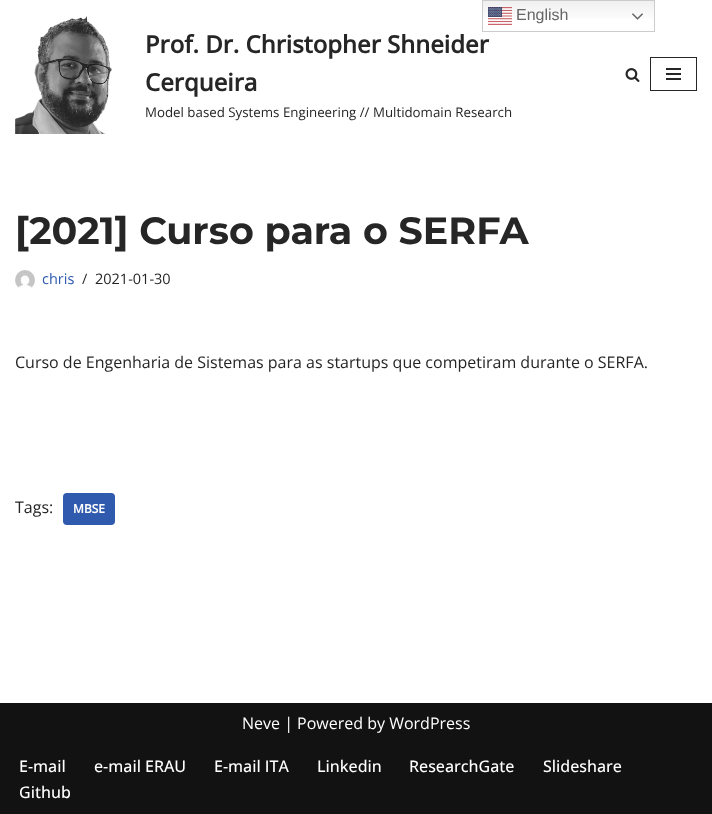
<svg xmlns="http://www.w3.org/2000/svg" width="712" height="814">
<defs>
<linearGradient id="g1" gradientUnits="userSpaceOnUse" x1="569" y1="0" x2="569" y2="32"><stop offset="0" stop-color="#efefef"/><stop offset="0.7" stop-color="#fff"/></linearGradient>
</defs>
<rect width="100%" height="100%" fill="#fff"/>
<rect x="483" y="1" width="171" height="18" fill="url(#g1)"/>
<rect x="482.5" y="0.5" width="172" height="31" fill="none" stroke="#ccc"/>
<image x="488" y="7" width="24" height="18" href="media/1.png"/>
<text x="516" y="20" style="font-family:Liberation Sans;font-size:16px;fill:#666">English</text>
<image x="632" y="13" width="11" height="7" href="media/2.png"/>
<image x="15" y="16" width="97" height="118" href="media/3.png"/>
<text x="145" y="53" style="font-family:Open Sans;font-size:24px;font-weight:bold;fill:#272626">Prof. Dr. Christopher Shneider</text>
<text x="145" y="91" style="font-family:Open Sans;font-size:24px;font-weight:bold;fill:#272626">Cerqueira</text>
<text x="145" y="117" style="font-family:Open Sans;font-size:13.3px;fill:#272626">Model based Systems Engineering // Multidomain Research</text>
<image x="625" y="68" width="15" height="14" href="media/4.png"/>
<rect x="650.5" y="57.5" width="46" height="33" fill="none" stroke="#272626"/>
<rect x="666" y="68" width="15" height="2" fill="#272626"/>
<rect x="666" y="73" width="15" height="2" fill="#272626"/>
<rect x="666" y="78" width="15" height="2" fill="#272626"/>
<text x="15" y="244" style="font-family:Montserrat;font-size:38px;font-weight:bold;fill:#272626">[2021] Curso para o SERFA</text>
<image x="15" y="270" width="20" height="18" href="media/5.png"/>
<text x="42" y="284" style="font-family:Open Sans;font-size:14.5px;fill:#2f5aae">chris</text>
<text x="82" y="284" style="font-family:Open Sans;font-size:14.5px;fill:#272626">/</text>
<text x="95" y="284" style="font-family:Open Sans;font-size:14.5px;fill:#272626">2021-01-30</text>
<text x="15" y="368" style="font-family:Open Sans;font-size:16px;fill:#272626">Curso de Engenharia de Sistemas para as startups que competiram durante o SERFA.</text>
<text x="15" y="513" style="font-family:Open Sans;font-size:16px;fill:#272626">Tags:</text>
<rect x="63" y="493" width="52" height="32" rx="4" fill="#2f5aae"/>
<text x="73" y="513" style="font-family:Open Sans;font-size:12px;font-weight:bold;fill:#fff">MBSE</text>
<rect y="703" width="712" height="111" fill="#121212"/>
<text x="242" y="729" style="font-family:Open Sans;font-size:16px;fill:#fff">Neve | Powered by WordPress</text>
<text x="19" y="772" style="font-family:Open Sans;font-size:16px;font-weight:500;fill:#fff">E-mail</text>
<text x="94" y="772" style="font-family:Open Sans;font-size:16px;font-weight:500;fill:#fff">e-mail ERAU</text>
<text x="214" y="772" style="font-family:Open Sans;font-size:16px;font-weight:500;fill:#fff">E-mail ITA</text>
<text x="317" y="772" style="font-family:Open Sans;font-size:16px;font-weight:500;fill:#fff">Linkedin</text>
<text x="409" y="772" style="font-family:Open Sans;font-size:16px;font-weight:500;fill:#fff">ResearchGate</text>
<text x="543" y="772" style="font-family:Open Sans;font-size:16px;font-weight:500;fill:#fff">Slideshare</text>
<text x="19" y="798" style="font-family:Open Sans;font-size:16px;font-weight:500;fill:#fff">Github</text>
</svg>
